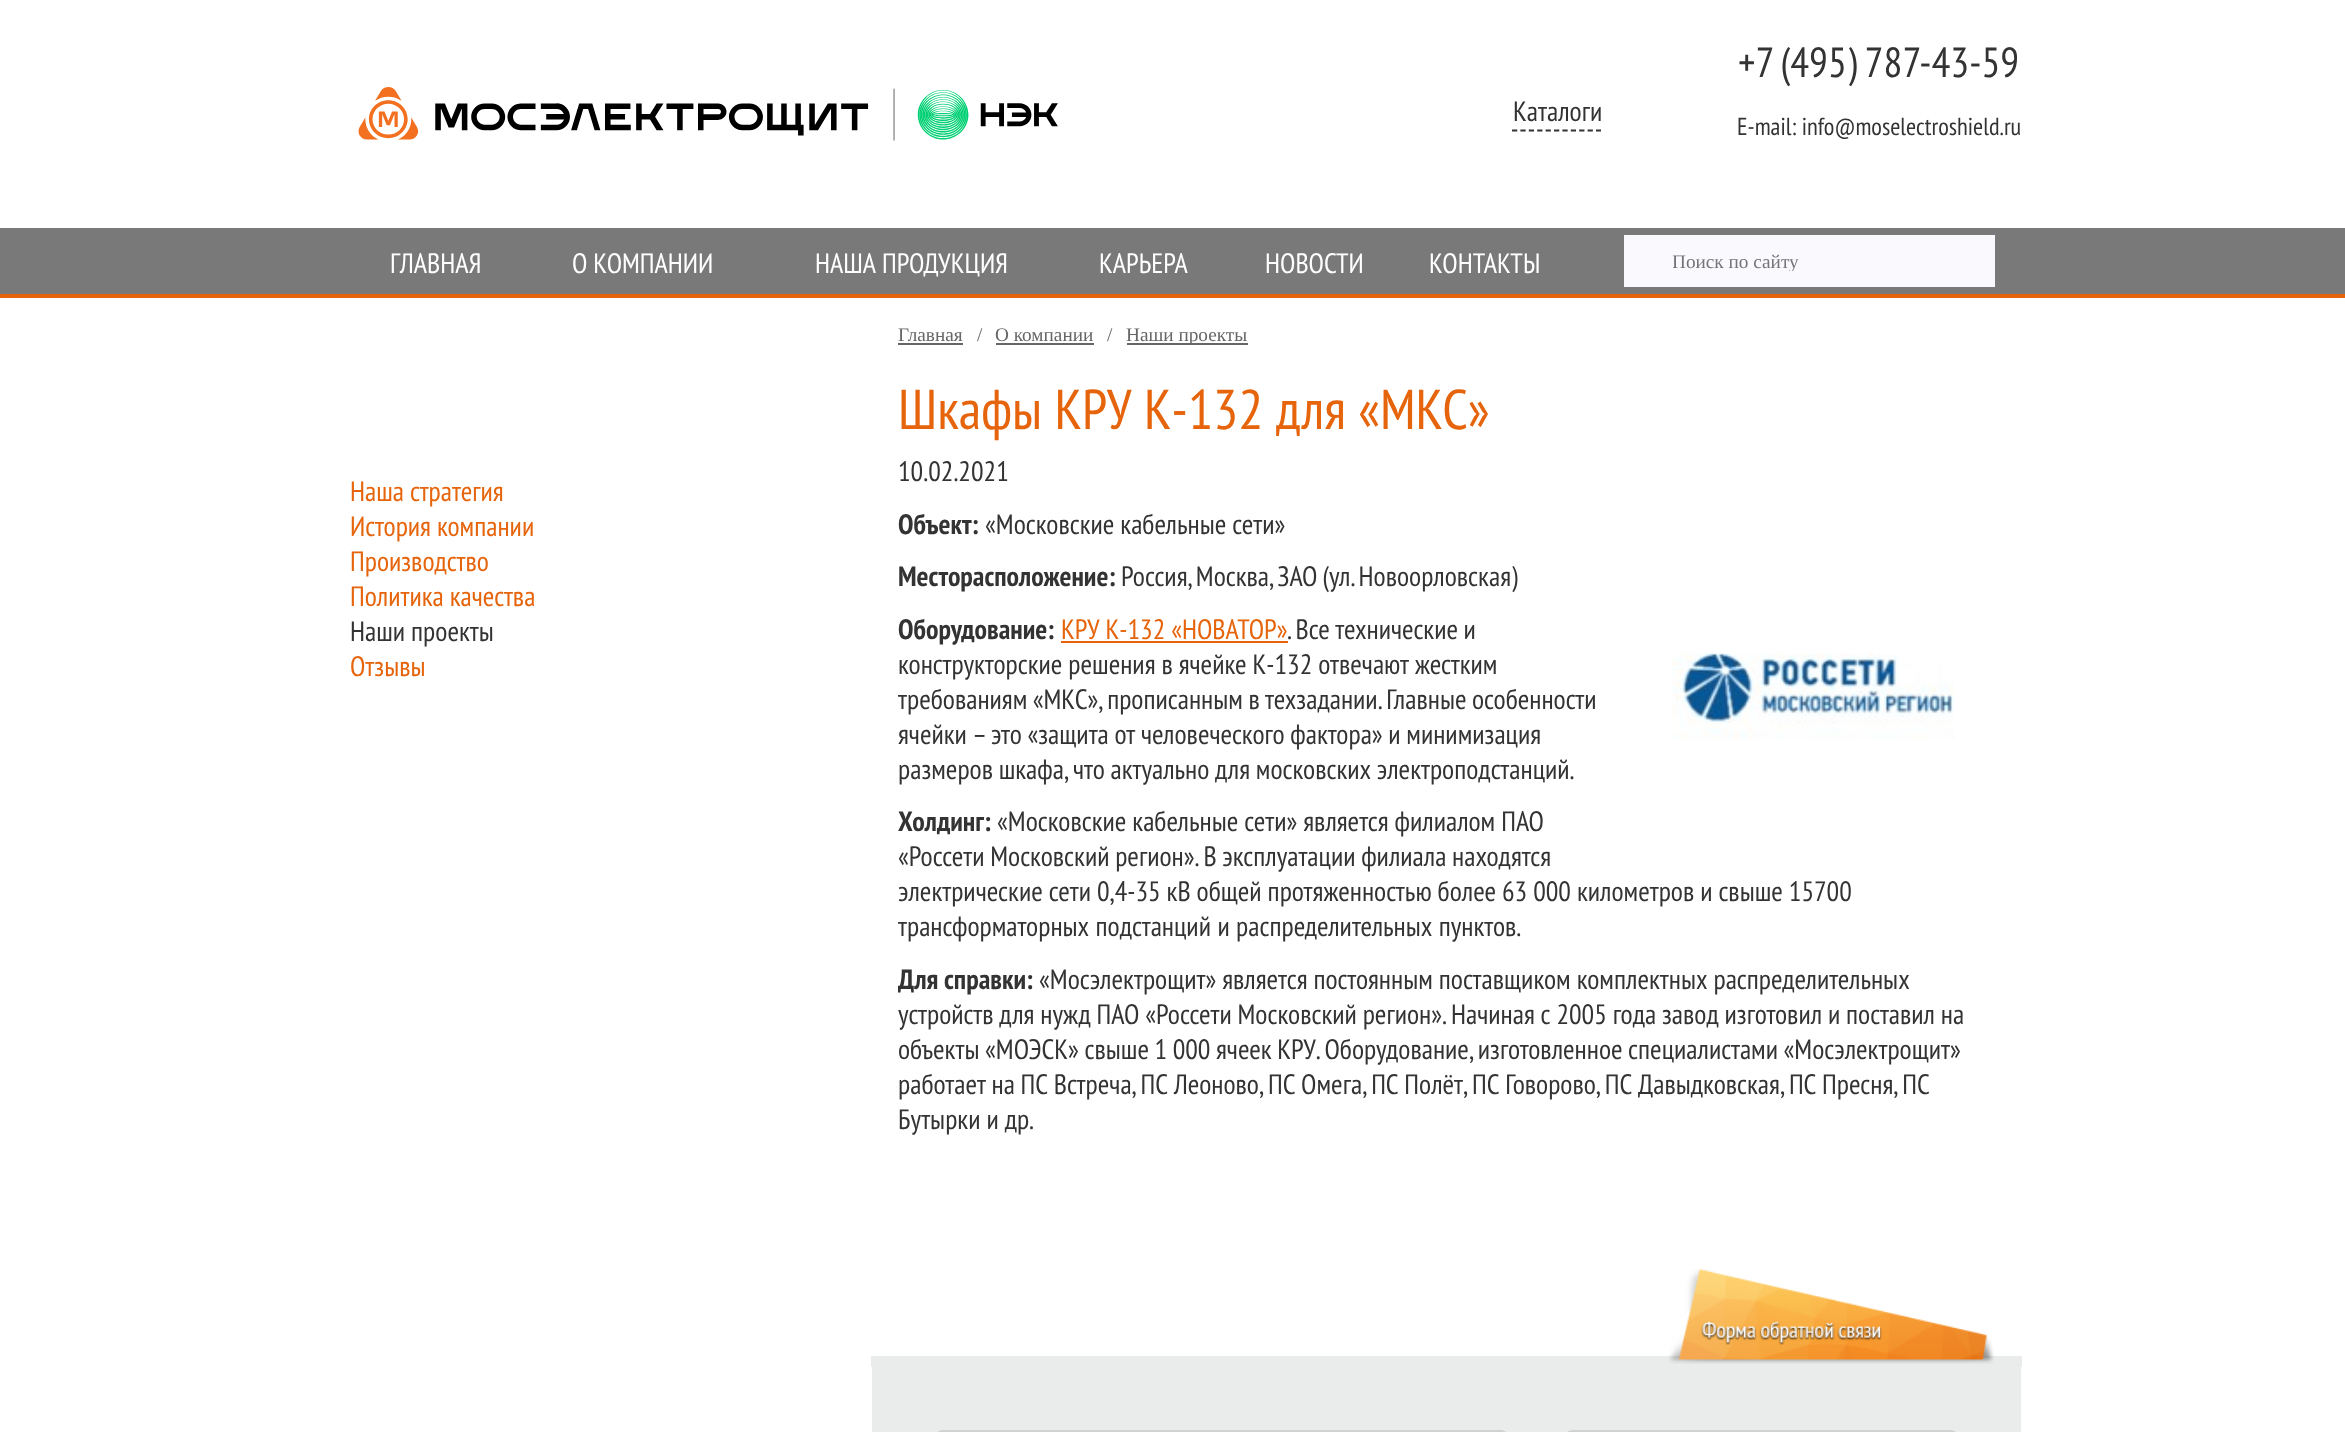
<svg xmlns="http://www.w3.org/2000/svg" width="2345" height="1432">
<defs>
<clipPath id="clip1"><rect x="1673" y="250" width="322" height="21"/></clipPath>
</defs>
<rect width="100%" height="100%" fill="#fff"/>
<image x="358" y="87" width="700" height="54" href="media/1.png"/>
<text x="1513" y="121" style="font-family:PT Sans Narrow;font-size:28px;fill:#333">Каталоги</text>
<path d="M1512 130.5h89" fill="none" stroke="#333" stroke-width="1.8" stroke-dasharray="5.25 3.15"/>
<text x="1738" y="77" word-spacing="-1" style="font-family:PT Sans Narrow;font-size:42px;fill:#333">+7 (495) 787-43-59</text>
<text x="1737" y="135" style="font-family:PT Sans Narrow;font-size:24.5px;fill:#333">E-mail: info@moselectroshield.ru</text>
<rect y="228" width="2345" height="66" fill="#797979"/>
<rect y="294" width="2345" height="4" fill="#e6640b"/>
<text x="390" y="273" style="font-family:PT Sans Narrow;font-size:28px;fill:#fff">ГЛАВНАЯ</text>
<text x="572" y="273" style="font-family:PT Sans Narrow;font-size:28px;fill:#fff">О КОМПАНИИ</text>
<text x="815" y="273" style="font-family:PT Sans Narrow;font-size:28px;fill:#fff">НАША ПРОДУКЦИЯ</text>
<text x="1099" y="273" style="font-family:PT Sans Narrow;font-size:28px;fill:#fff">КАРЬЕРА</text>
<text x="1265" y="273" style="font-family:PT Sans Narrow;font-size:28px;fill:#fff">НОВОСТИ</text>
<text x="1429" y="273" style="font-family:PT Sans Narrow;font-size:28px;fill:#fff">КОНТАКТЫ</text>
<rect x="1624" y="235" width="371" height="52" fill="#faf9fe"/>
<g clip-path="url(#clip1)">
<text x="1672" y="268" style="font-family:Liberation Serif;font-size:19.25px;fill:#757575">Поиск по сайту</text>
</g>
<text x="350" y="501" style="font-family:PT Sans Narrow;font-size:28px;fill:#e6640b">Наша стратегия</text>
<text x="350" y="536" style="font-family:PT Sans Narrow;font-size:28px;fill:#e6640b">История компании</text>
<text x="350" y="571" style="font-family:PT Sans Narrow;font-size:28px;fill:#e6640b">Производство</text>
<text x="350" y="606" style="font-family:PT Sans Narrow;font-size:28px;fill:#e6640b">Политика качества</text>
<text x="350" y="641" style="font-family:PT Sans Narrow;font-size:28px;fill:#333">Наши проекты</text>
<text x="350" y="676" style="font-family:PT Sans Narrow;font-size:28px;fill:#e6640b">Отзывы</text>
<text x="898" y="341" style="font-family:Liberation Serif;font-size:19.25px;fill:#666">Главная</text>
<rect x="898" y="343" width="65" height="2" fill="#666"/>
<text x="977" y="341" style="font-family:Liberation Serif;font-size:19.25px;fill:#666">/</text>
<text x="995" y="341" style="font-family:Liberation Serif;font-size:19.25px;fill:#666">О компании</text>
<rect x="996" y="343" width="98" height="2" fill="#666"/>
<text x="1107" y="341" style="font-family:Liberation Serif;font-size:19.25px;fill:#666">/</text>
<rect x="1127" y="343" width="121" height="2" fill="#666"/>
<text x="1126" y="341" style="font-family:Liberation Serif;font-size:19.25px;fill:#666">Наши проекты</text>
<text x="898" y="429" word-spacing="0.5" style="font-family:PT Sans Narrow;font-size:56px;fill:#e6640b">Шкафы КРУ К-132 для «МКС»</text>
<text x="898" y="481" style="font-family:PT Sans Narrow;font-size:28px;fill:#333">10.02.2021</text>
<text x="898" y="534" style="font-family:PT Sans Narrow;font-size:28px;font-weight:bold;fill:#333">Объект:</text>
<text x="985" y="534" style="font-family:PT Sans Narrow;font-size:28px;fill:#333">«Московские кабельные сети»</text>
<text x="898" y="586" style="font-family:PT Sans Narrow;font-size:28px;font-weight:bold;fill:#333">Месторасположение:</text>
<text x="1121" y="586" word-spacing="-1" style="font-family:PT Sans Narrow;font-size:28px;fill:#333">Россия, Москва, ЗАО (ул. Новоорловская)</text>
<text x="898" y="639" style="font-family:PT Sans Narrow;font-size:28px;font-weight:bold;fill:#333">Оборудование:</text>
<text x="1061" y="639" style="font-family:PT Sans Narrow;font-size:28px;fill:#e6640b">КРУ К-132 «НОВАТОР»</text>
<rect x="1061" y="641" width="227" height="2" fill="#e6640b"/>
<text x="1287" y="639" word-spacing="-0.5" style="font-family:PT Sans Narrow;font-size:28px;fill:#333">. Все технические и</text>
<text x="898" y="674" style="font-family:PT Sans Narrow;font-size:28px;fill:#333">конструкторские решения в ячейке К-132 отвечают жестким</text>
<text x="898" y="709" word-spacing="-0.5" style="font-family:PT Sans Narrow;font-size:28px;fill:#333">требованиям «МКС», прописанным в техзадании. Главные особенности</text>
<text x="898" y="744" word-spacing="-0.25" style="font-family:PT Sans Narrow;font-size:28px;fill:#333">ячейки – это «защита от человеческого фактора» и минимизация</text>
<text x="898" y="779" word-spacing="-0.25" style="font-family:PT Sans Narrow;font-size:28px;fill:#333">размеров шкафа, что актуально для московских электроподстанций.</text>
<text x="898" y="831" style="font-family:PT Sans Narrow;font-size:28px;font-weight:bold;fill:#333">Холдинг:</text>
<text x="997" y="831" style="font-family:PT Sans Narrow;font-size:28px;fill:#333">«Московские кабельные сети» является филиалом ПАО</text>
<text x="898" y="866" word-spacing="-0.25" style="font-family:PT Sans Narrow;font-size:28px;fill:#333">«Россети Московский регион». В эксплуатации филиала находятся</text>
<text x="898" y="901" style="font-family:PT Sans Narrow;font-size:28px;fill:#333">электрические сети 0,4-35 кВ общей протяженностью более 63 000 километров и свыше 15700</text>
<text x="898" y="936" word-spacing="0.5" style="font-family:PT Sans Narrow;font-size:28px;fill:#333">трансформаторных подстанций и распределительных пунктов.</text>
<text x="898" y="989" style="font-family:PT Sans Narrow;font-size:28px;font-weight:bold;fill:#333">Для справки:</text>
<text x="1039" y="989" style="font-family:PT Sans Narrow;font-size:28px;fill:#333">«Мосэлектрощит» является постоянным поставщиком комплектных распределительных</text>
<text x="898" y="1024" word-spacing="-0.1" style="font-family:PT Sans Narrow;font-size:28px;fill:#333">устройств для нужд ПАО «Россети Московский регион». Начиная с 2005 года завод изготовил и поставил на</text>
<text x="898" y="1059" word-spacing="-0.4" style="font-family:PT Sans Narrow;font-size:28px;fill:#333">объекты «МОЭСК» свыше 1 000 ячеек КРУ. Оборудование, изготовленное специалистами «Мосэлектрощит»</text>
<text x="898" y="1094" word-spacing="-0.3" style="font-family:PT Sans Narrow;font-size:28px;fill:#333">работает на ПС Встреча, ПС Леоново, ПС Омега, ПС Полёт, ПС Говорово, ПС Давыдковская, ПС Пресня, ПС</text>
<text x="898" y="1129" style="font-family:PT Sans Narrow;font-size:28px;fill:#333">Бутырки и др.</text>
<image x="1672" y="652" width="283" height="87" href="media/2.png"/>
<rect x="871" y="1356" width="1151" height="11" fill="#eaeceb"/>
<image x="1668" y="1269" width="326" height="95" href="media/3.png"/>
<rect x="872" y="1367" width="1149" height="65" fill="#eaecec"/>
<path d="M942 1432h560c4 0 6 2 6 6v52c0 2 0 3-1 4c1-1 2-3 2-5v-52c0-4-3-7-7-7h-560c-4 0-7 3-7 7v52c0 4 3 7 7 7c-3 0-6-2-6-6v-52c0-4 3-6 6-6z" fill="#d1d1d1"/>
<rect x="934" y="1429" width="575" height="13" rx="8" fill="none" stroke="#eaecec" stroke-width="2"/>
<path d="M1572 1432h380c4 0 6 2 6 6v-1c0-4-3-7-7-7h-379c-4 0-7 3-7 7v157c0 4 3 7 7 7c-3 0-6-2-6-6v-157c0-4 3-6 6-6z" fill="#d1d1d1"/>
<rect x="1564" y="1429" width="395" height="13" rx="8" fill="none" stroke="#eaecec" stroke-width="2"/>
</svg>
